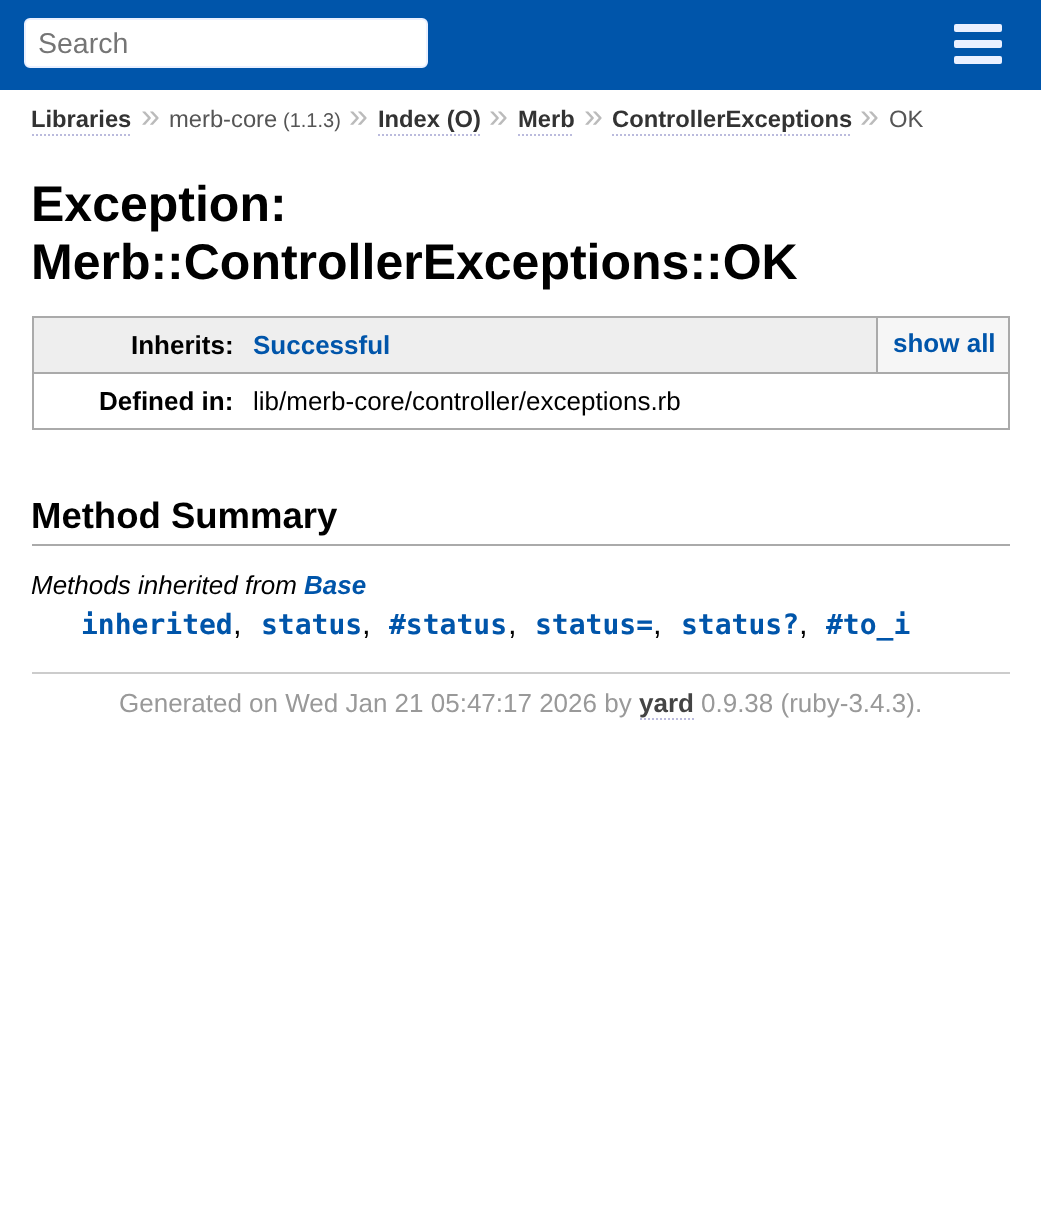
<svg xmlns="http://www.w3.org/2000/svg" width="1041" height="1232">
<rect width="100%" height="100%" fill="#fff"/>
<rect width="1041" height="90" fill="#05a"/>
<rect x="25" y="19" width="402" height="48" rx="5" fill="#fff" stroke="#eaf0ff" stroke-width="2"/>
<text x="38" y="53" style="font-family:Liberation Sans;font-size:28.5px;fill:#757575">Search</text>
<rect x="954" y="24" width="48" height="8" rx="2" fill="#eaf0ff"/>
<rect x="954" y="40" width="48" height="8" rx="2" fill="#eaf0ff"/>
<rect x="954" y="56" width="48" height="8" rx="2" fill="#eaf0ff"/>
<text x="31" y="127" style="font-family:Liberation Sans;font-size:23.75px;font-weight:bold;fill:#333">Libraries</text>
<path d="M32 135h100" fill="none" stroke="#bbd" stroke-width="2" stroke-dasharray="2 2"/>
<text x="141" y="127" style="font-family:Liberation Sans;font-size:34px;fill:#bbb">»</text>
<text x="169" y="127" style="font-family:Liberation Sans;font-size:23.75px;fill:#555">merb-core</text>
<text x="283" y="127" style="font-family:Liberation Sans;font-size:20px;fill:#555">(1.1.3)</text>
<text x="349" y="127" style="font-family:Liberation Sans;font-size:34px;fill:#bbb">»</text>
<text x="378" y="127" style="font-family:Liberation Sans;font-size:23.75px;font-weight:bold;fill:#333">Index (O)</text>
<path d="M378 135h102" fill="none" stroke="#bbd" stroke-width="2" stroke-dasharray="2 2"/>
<text x="489" y="127" style="font-family:Liberation Sans;font-size:34px;fill:#bbb">»</text>
<text x="518" y="127" style="font-family:Liberation Sans;font-size:23.75px;font-weight:bold;fill:#333">Merb</text>
<path d="M518 135h56" fill="none" stroke="#bbd" stroke-width="2" stroke-dasharray="2 2"/>
<text x="584" y="127" style="font-family:Liberation Sans;font-size:34px;fill:#bbb">»</text>
<text x="612" y="127" style="font-family:Liberation Sans;font-size:23.75px;font-weight:bold;fill:#333">ControllerExceptions</text>
<path d="M612 135h238" fill="none" stroke="#bbd" stroke-width="2" stroke-dasharray="2 2"/>
<text x="860" y="127" style="font-family:Liberation Sans;font-size:34px;fill:#bbb">»</text>
<text x="889" y="127" style="font-family:Liberation Sans;font-size:23.75px;fill:#555">OK</text>
<text x="31" y="221" style="font-family:Liberation Sans;font-size:50px;font-weight:bold;fill:#000">Exception:</text>
<text x="31" y="279" style="font-family:Liberation Sans;font-size:50px;font-weight:bold;fill:#000">Merb::ControllerExceptions::OK</text>
<rect x="34" y="318" width="842" height="54" fill="#eee"/>
<rect x="32" y="316" width="978" height="2" fill="#aaa"/>
<rect x="32" y="316" width="2" height="56" fill="#aaa"/>
<text x="131" y="354" style="font-family:Liberation Sans;font-size:26px;font-weight:bold;fill:#000">Inherits:</text>
<rect x="32" y="372" width="978" height="2" fill="#aaa"/>
<rect x="1008" y="316" width="2" height="114" fill="#aaa"/>
<text x="253" y="354" style="font-family:Liberation Sans;font-size:26px;font-weight:bold;fill:#05a">Successful</text>
<rect x="878" y="318" width="130" height="54" fill="#f6f6f6"/>
<rect x="876" y="318" width="2" height="54" fill="#aaa"/>
<text x="893" y="352" style="font-family:Liberation Sans;font-size:26px;font-weight:bold;fill:#05a">show all</text>
<rect x="32" y="428" width="222" height="2" fill="#aaa"/>
<rect x="32" y="372" width="2" height="58" fill="#aaa"/>
<text x="99" y="410" style="font-family:Liberation Sans;font-size:26px;font-weight:bold;fill:#000">Defined in:</text>
<rect x="254" y="428" width="756" height="2" fill="#aaa"/>
<text x="253" y="410" style="font-family:Liberation Sans;font-size:26px;fill:#000">lib/merb-core/controller/exceptions.rb</text>
<rect x="32" y="544" width="978" height="2" fill="#aaa"/>
<text x="31" y="528" style="font-family:Liberation Sans;font-size:36.5px;font-weight:bold;fill:#000">Method Summary</text>
<text x="31" y="594" style="font-family:Liberation Sans;font-size:26px;font-style:italic;fill:#000">Methods inherited from</text>
<text x="304" y="594" style="font-family:Liberation Sans;font-size:26px;font-weight:bold;font-style:italic;fill:#05a">Base</text>
<text x="81" y="634" style="font-family:DejaVu Sans Mono;font-size:28px;font-weight:bold;fill:#05a">inherited</text>
<text x="233" y="634" style="font-family:Liberation Sans;font-size:31px;fill:#000">,</text>
<text x="261" y="634" style="font-family:DejaVu Sans Mono;font-size:28px;font-weight:bold;fill:#05a">status</text>
<text x="362" y="634" style="font-family:Liberation Sans;font-size:31px;fill:#000">,</text>
<text x="389" y="634" style="font-family:DejaVu Sans Mono;font-size:28px;font-weight:bold;fill:#05a">#status</text>
<text x="508" y="634" style="font-family:Liberation Sans;font-size:31px;fill:#000">,</text>
<text x="535" y="634" style="font-family:DejaVu Sans Mono;font-size:28px;font-weight:bold;fill:#05a">status=</text>
<text x="653" y="634" style="font-family:Liberation Sans;font-size:31px;fill:#000">,</text>
<text x="681" y="634" style="font-family:DejaVu Sans Mono;font-size:28px;font-weight:bold;fill:#05a">status?</text>
<text x="799" y="634" style="font-family:Liberation Sans;font-size:31px;fill:#000">,</text>
<text x="826" y="634" style="font-family:DejaVu Sans Mono;font-size:28px;font-weight:bold;fill:#05a">#to_i</text>
<rect x="32" y="672" width="978" height="2" fill="#ccc"/>
<text x="119" y="712" style="font-family:Liberation Sans;font-size:26px;fill:#999">Generated on Wed Jan 21 05:47:17 2026 by</text>
<text x="639" y="712" style="font-family:Liberation Sans;font-size:26px;font-weight:bold;fill:#444">yard</text>
<path d="M640 719h54" fill="none" stroke="#bbd" stroke-width="2" stroke-dasharray="2 2"/>
<text x="701" y="712" style="font-family:Liberation Sans;font-size:26px;fill:#999">0.9.38 (ruby-3.4.3).</text>
</svg>
